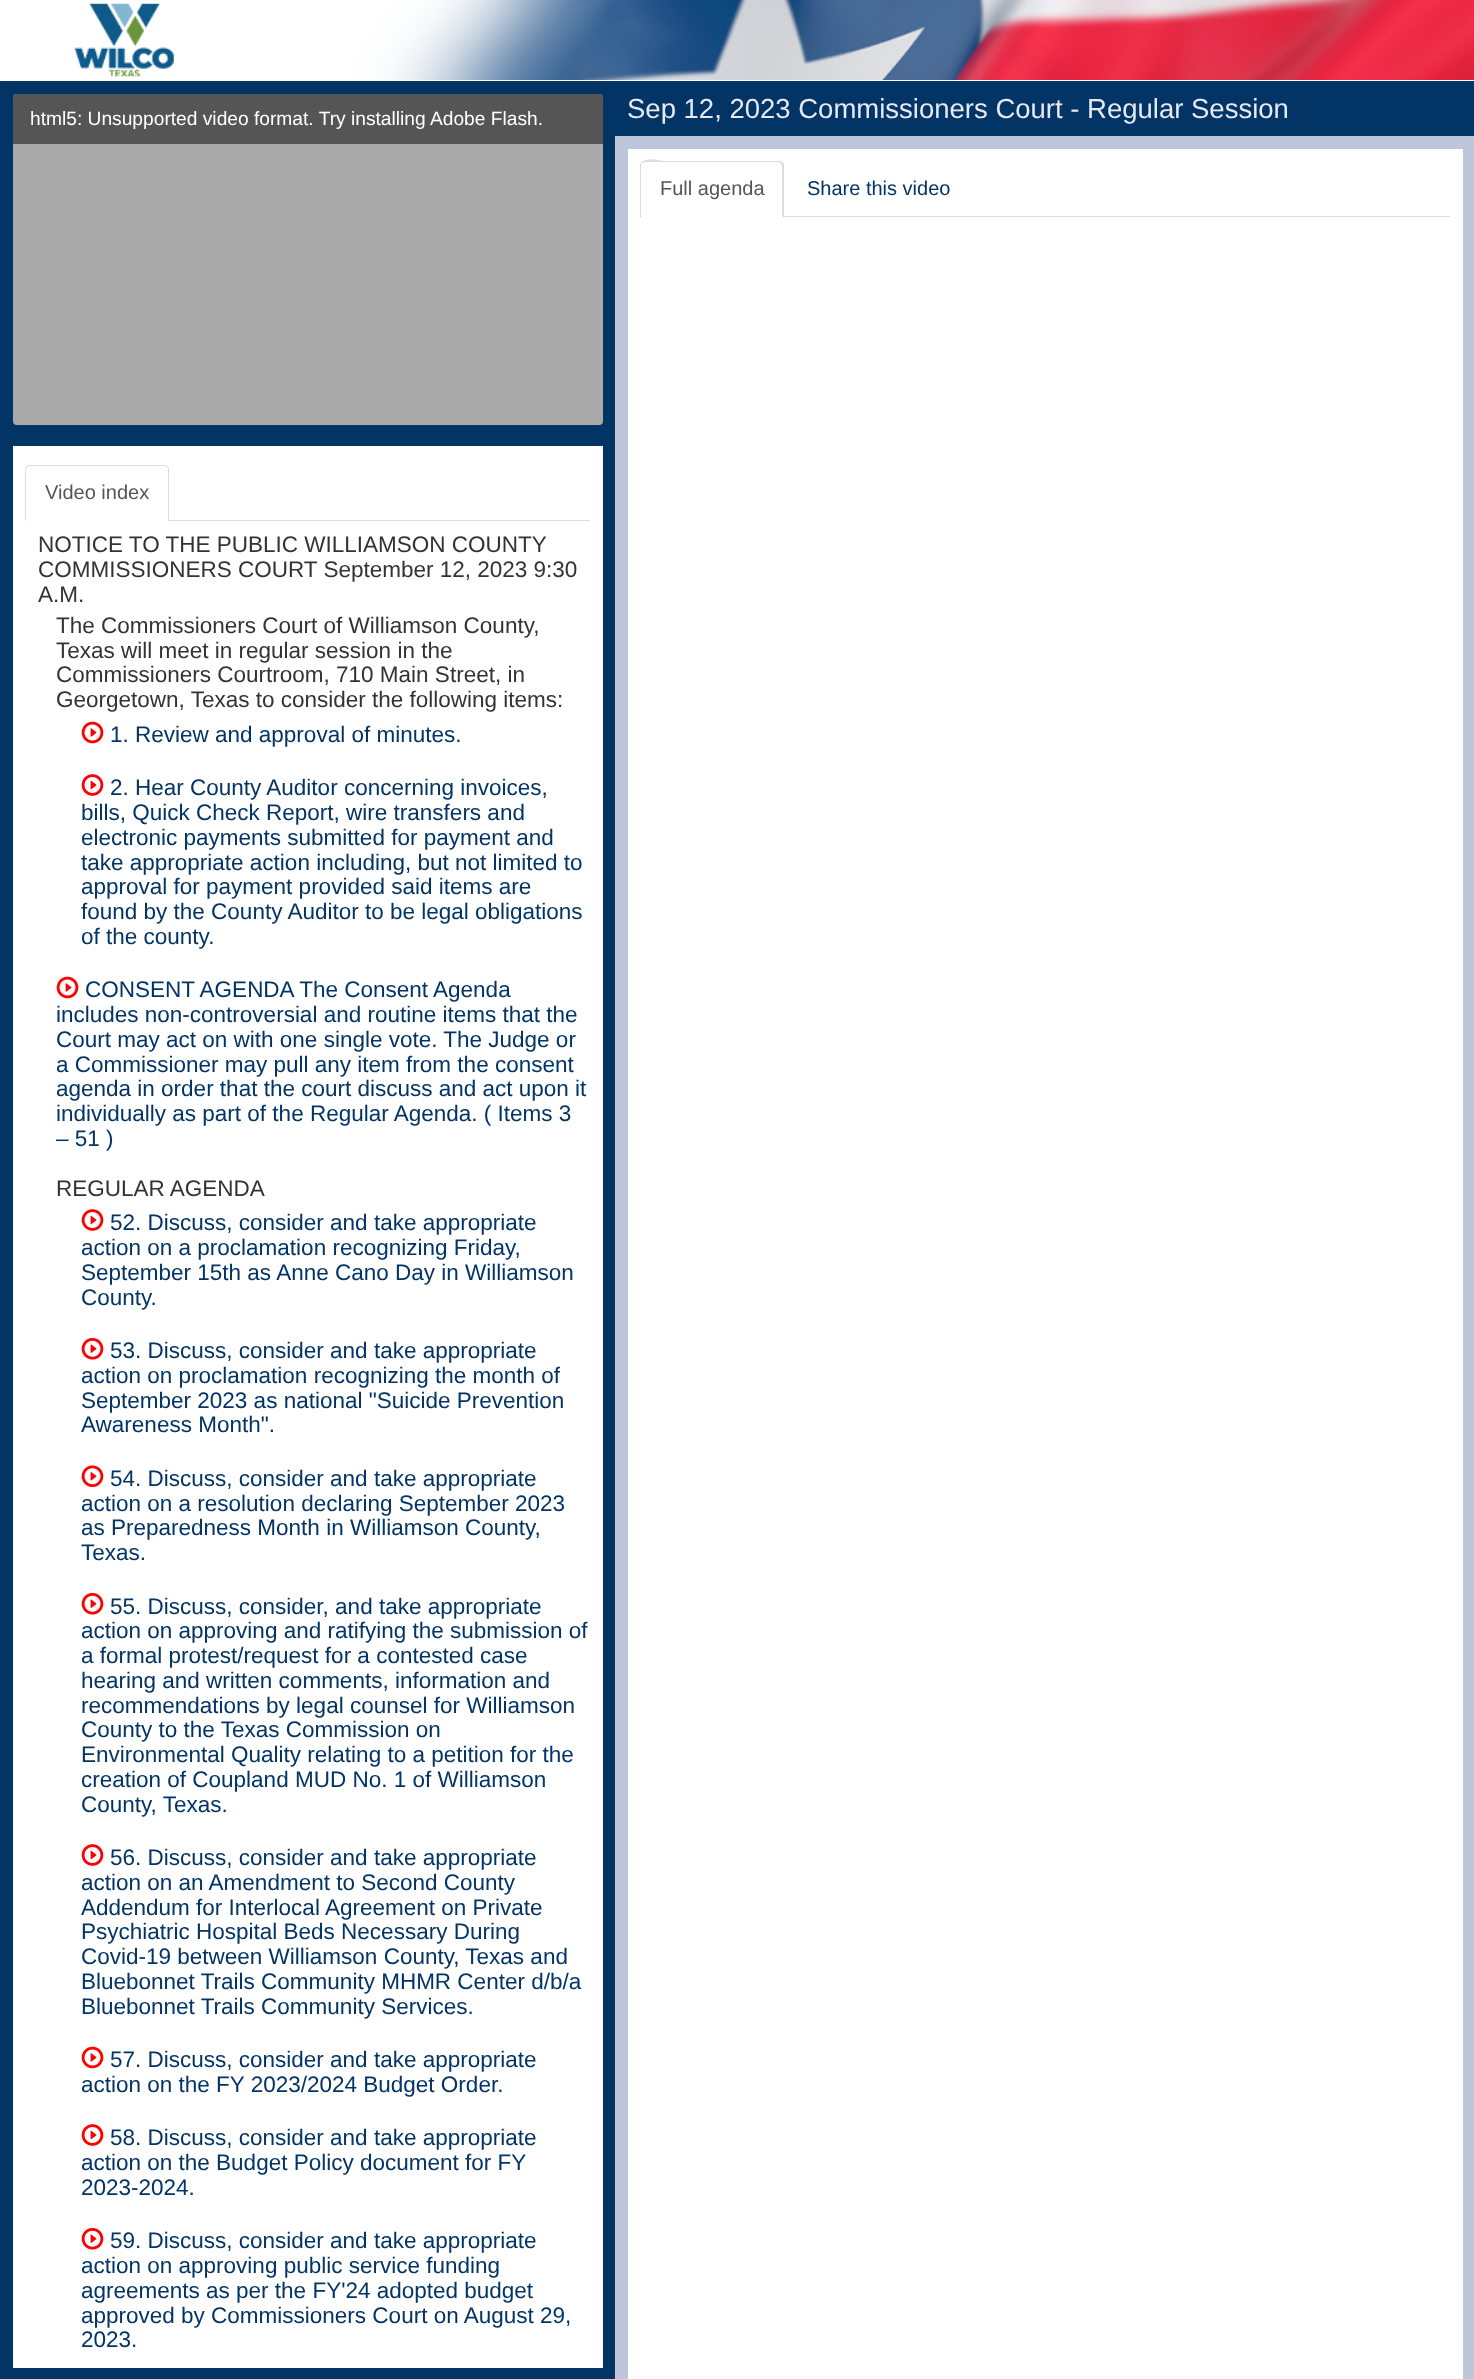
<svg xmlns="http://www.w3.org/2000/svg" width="1474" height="2379">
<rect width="100%" height="100%" fill="#fff"/>
<image x="0" y="0" width="1474" height="80" href="media/1.png"/>
<rect y="81" width="615" height="2298" fill="#023466"/>
<rect x="13" y="94" width="590" height="331" rx="4" fill="#aaa"/>
<path d="M17 94h582c2 0 4 2 4 4v46h-590v-46c0-2 2-4 4-4z" fill="#00000080"/>
<text x="30" y="125" style="font-family:Liberation Sans;font-size:19.2px;fill:#fff">html5: Unsupported video format. Try installing Adobe Flash.</text>
<rect x="13" y="446" width="590" height="1922" fill="#fff"/>
<rect x="169" y="520" width="421" height="1" fill="#ddd"/>
<path d="M30 465c-2 0-3 1-4 1l1 1l3-1h134l3 1v-1c0-1-2-1-3-1z" fill="#ddd"/>
<path d="M169 521l-1-1v-51l-1-2v-1l2 2z" fill="#ddd"/>
<path d="M25 470v51l1-1v-50l1-3l-1-1c0 1-1 2-1 4z" fill="#ddd"/>
<text x="45" y="499" style="font-family:Liberation Sans;font-size:20px;fill:#555">Video index</text>
<text x="38" y="552" style="font-family:Liberation Sans;font-size:22.5px;fill:#333">NOTICE TO THE PUBLIC WILLIAMSON COUNTY</text>
<text x="38" y="577" style="font-family:Liberation Sans;font-size:22.5px;fill:#333">COMMISSIONERS COURT September 12, 2023 9:30</text>
<text x="38" y="602" style="font-family:Liberation Sans;font-size:22.5px;fill:#333">A.M.</text>
<text x="56" y="633" style="font-family:Liberation Sans;font-size:22.5px;fill:#333">The Commissioners Court of Williamson County,</text>
<text x="56" y="658" style="font-family:Liberation Sans;font-size:22.5px;fill:#333">Texas will meet in regular session in the</text>
<text x="56" y="682" style="font-family:Liberation Sans;font-size:22.5px;fill:#333">Commissioners Courtroom, 710 Main Street, in</text>
<text x="56" y="707" style="font-family:Liberation Sans;font-size:22.5px;fill:#333">Georgetown, Texas to consider the following items:</text>
<image x="81" y="721" width="23" height="23" href="media/2.png"/>
<text x="110" y="742" style="font-family:Liberation Sans;font-size:22.5px;fill:#023466">1. Review and approval of minutes.</text>
<image x="81" y="774" width="23" height="22" href="media/3.png"/>
<text x="110" y="795" style="font-family:Liberation Sans;font-size:22.5px;fill:#023466">2. Hear County Auditor concerning invoices,</text>
<text x="81" y="820" style="font-family:Liberation Sans;font-size:22.5px;fill:#023466">bills, Quick Check Report, wire transfers and</text>
<text x="81" y="845" style="font-family:Liberation Sans;font-size:22.5px;fill:#023466">electronic payments submitted for payment and</text>
<text x="81" y="870" style="font-family:Liberation Sans;font-size:22.5px;fill:#023466">take appropriate action including, but not limited to</text>
<text x="81" y="894" style="font-family:Liberation Sans;font-size:22.5px;fill:#023466">approval for payment provided said items are</text>
<text x="81" y="919" style="font-family:Liberation Sans;font-size:22.5px;fill:#023466">found by the County Auditor to be legal obligations</text>
<text x="81" y="944" style="font-family:Liberation Sans;font-size:22.5px;fill:#023466">of the county.</text>
<image x="56" y="976" width="23" height="23" href="media/2.png"/>
<text x="85" y="997" style="font-family:Liberation Sans;font-size:22.5px;fill:#023466">CONSENT AGENDA The Consent Agenda</text>
<text x="56" y="1022" style="font-family:Liberation Sans;font-size:22.5px;fill:#023466">includes non-controversial and routine items that the</text>
<text x="56" y="1047" style="font-family:Liberation Sans;font-size:22.5px;fill:#023466">Court may act on with one single vote. The Judge or</text>
<text x="56" y="1072" style="font-family:Liberation Sans;font-size:22.5px;fill:#023466">a Commissioner may pull any item from the consent</text>
<text x="56" y="1096" style="font-family:Liberation Sans;font-size:22.5px;fill:#023466">agenda in order that the court discuss and act upon it</text>
<text x="56" y="1121" style="font-family:Liberation Sans;font-size:22.5px;fill:#023466">individually as part of the Regular Agenda. ( Items 3</text>
<text x="56" y="1146" style="font-family:Liberation Sans;font-size:22.5px;fill:#023466">– 51 )</text>
<text x="56" y="1196" style="font-family:Liberation Sans;font-size:22.5px;fill:#333">REGULAR AGENDA</text>
<image x="81" y="1209" width="23" height="22" href="media/3.png"/>
<text x="110" y="1230" style="font-family:Liberation Sans;font-size:22.5px;fill:#023466">52. Discuss, consider and take appropriate</text>
<text x="81" y="1255" style="font-family:Liberation Sans;font-size:22.5px;fill:#023466">action on a proclamation recognizing Friday,</text>
<text x="81" y="1280" style="font-family:Liberation Sans;font-size:22.5px;fill:#023466">September 15th as Anne Cano Day in Williamson</text>
<text x="81" y="1305" style="font-family:Liberation Sans;font-size:22.5px;fill:#023466">County.</text>
<image x="81" y="1337" width="23" height="23" href="media/4.png"/>
<text x="110" y="1358" style="font-family:Liberation Sans;font-size:22.5px;fill:#023466">53. Discuss, consider and take appropriate</text>
<text x="81" y="1383" style="font-family:Liberation Sans;font-size:22.5px;fill:#023466">action on proclamation recognizing the month of</text>
<text x="81" y="1408" style="font-family:Liberation Sans;font-size:22.5px;fill:#023466">September 2023 as national "Suicide Prevention</text>
<text x="81" y="1432" style="font-family:Liberation Sans;font-size:22.5px;fill:#023466">Awareness Month".</text>
<image x="81" y="1465" width="23" height="23" href="media/5.png"/>
<text x="110" y="1486" style="font-family:Liberation Sans;font-size:22.5px;fill:#023466">54. Discuss, consider and take appropriate</text>
<text x="81" y="1511" style="font-family:Liberation Sans;font-size:22.5px;fill:#023466">action on a resolution declaring September 2023</text>
<text x="81" y="1535" style="font-family:Liberation Sans;font-size:22.5px;fill:#023466">as Preparedness Month in Williamson County,</text>
<text x="81" y="1560" style="font-family:Liberation Sans;font-size:22.5px;fill:#023466">Texas.</text>
<image x="81" y="1592" width="23" height="23" href="media/4.png"/>
<text x="110" y="1614" style="font-family:Liberation Sans;font-size:22.5px;fill:#023466">55. Discuss, consider, and take appropriate</text>
<text x="81" y="1638" style="font-family:Liberation Sans;font-size:22.5px;fill:#023466">action on approving and ratifying the submission of</text>
<text x="81" y="1663" style="font-family:Liberation Sans;font-size:22.5px;fill:#023466">a formal protest/request for a contested case</text>
<text x="81" y="1688" style="font-family:Liberation Sans;font-size:22.5px;fill:#023466">hearing and written comments, information and</text>
<text x="81" y="1713" style="font-family:Liberation Sans;font-size:22.5px;fill:#023466">recommendations by legal counsel for Williamson</text>
<text x="81" y="1737" style="font-family:Liberation Sans;font-size:22.5px;fill:#023466">County to the Texas Commission on</text>
<text x="81" y="1762" style="font-family:Liberation Sans;font-size:22.5px;fill:#023466">Environmental Quality relating to a petition for the</text>
<text x="81" y="1787" style="font-family:Liberation Sans;font-size:22.5px;fill:#023466">creation of Coupland MUD No. 1 of Williamson</text>
<text x="81" y="1812" style="font-family:Liberation Sans;font-size:22.5px;fill:#023466">County, Texas.</text>
<image x="81" y="1844" width="23" height="22" href="media/3.png"/>
<text x="110" y="1865" style="font-family:Liberation Sans;font-size:22.5px;fill:#023466">56. Discuss, consider and take appropriate</text>
<text x="81" y="1890" style="font-family:Liberation Sans;font-size:22.5px;fill:#023466">action on an Amendment to Second County</text>
<text x="81" y="1915" style="font-family:Liberation Sans;font-size:22.5px;fill:#023466">Addendum for Interlocal Agreement on Private</text>
<text x="81" y="1939" style="font-family:Liberation Sans;font-size:22.5px;fill:#023466">Psychiatric Hospital Beds Necessary During</text>
<text x="81" y="1964" style="font-family:Liberation Sans;font-size:22.5px;fill:#023466">Covid-19 between Williamson County, Texas and</text>
<text x="81" y="1989" style="font-family:Liberation Sans;font-size:22.5px;fill:#023466">Bluebonnet Trails Community MHMR Center d/b/a</text>
<text x="81" y="2014" style="font-family:Liberation Sans;font-size:22.5px;fill:#023466">Bluebonnet Trails Community Services.</text>
<image x="81" y="2046" width="23" height="23" href="media/2.png"/>
<text x="110" y="2067" style="font-family:Liberation Sans;font-size:22.5px;fill:#023466">57. Discuss, consider and take appropriate</text>
<text x="81" y="2092" style="font-family:Liberation Sans;font-size:22.5px;fill:#023466">action on the FY 2023/2024 Budget Order.</text>
<image x="81" y="2124" width="23" height="22" href="media/3.png"/>
<text x="110" y="2145" style="font-family:Liberation Sans;font-size:22.5px;fill:#023466">58. Discuss, consider and take appropriate</text>
<text x="81" y="2170" style="font-family:Liberation Sans;font-size:22.5px;fill:#023466">action on the Budget Policy document for FY</text>
<text x="81" y="2195" style="font-family:Liberation Sans;font-size:22.5px;fill:#023466">2023-2024.</text>
<image x="81" y="2227" width="23" height="23" href="media/4.png"/>
<text x="110" y="2248" style="font-family:Liberation Sans;font-size:22.5px;fill:#023466">59. Discuss, consider and take appropriate</text>
<text x="81" y="2273" style="font-family:Liberation Sans;font-size:22.5px;fill:#023466">action on approving public service funding</text>
<text x="81" y="2298" style="font-family:Liberation Sans;font-size:22.5px;fill:#023466">agreements as per the FY'24 adopted budget</text>
<text x="81" y="2323" style="font-family:Liberation Sans;font-size:22.5px;fill:#023466">approved by Commissioners Court on August 29,</text>
<text x="81" y="2347" style="font-family:Liberation Sans;font-size:22.5px;fill:#023466">2023.</text>
<rect x="615" y="81" width="859" height="55" fill="#023466"/>
<text x="627" y="118" style="font-family:Liberation Sans;font-size:27.5px;fill:#e6e9f1">Sep 12, 2023 Commissioners Court - Regular Session</text>
<rect x="615" y="136" width="859" height="2243" fill="#bec6db"/>
<rect x="628" y="149" width="835" height="2230" fill="#fff"/>
<rect x="784" y="216" width="666" height="1" fill="#ddd"/>
<path d="M645 162l-3 1h-1c6-7 17-2 25-2h115l2 1l-2 2c0-1-1-2-2-2z" fill="#ddd"/>
<path d="M783 162l1 2v54l-2-2v-50l-1-2z" fill="#ddd"/>
<path d="M640 218l2-2h-1v-50c0-1 0-2 1-3h-1c-1 0-1 2-1 3z" fill="#ddd"/>
<text x="660" y="195" style="font-family:Liberation Sans;font-size:20px;fill:#555">Full agenda</text>
<text x="807" y="195" style="font-family:Liberation Sans;font-size:20px;fill:#023466">Share this video</text>
</svg>
